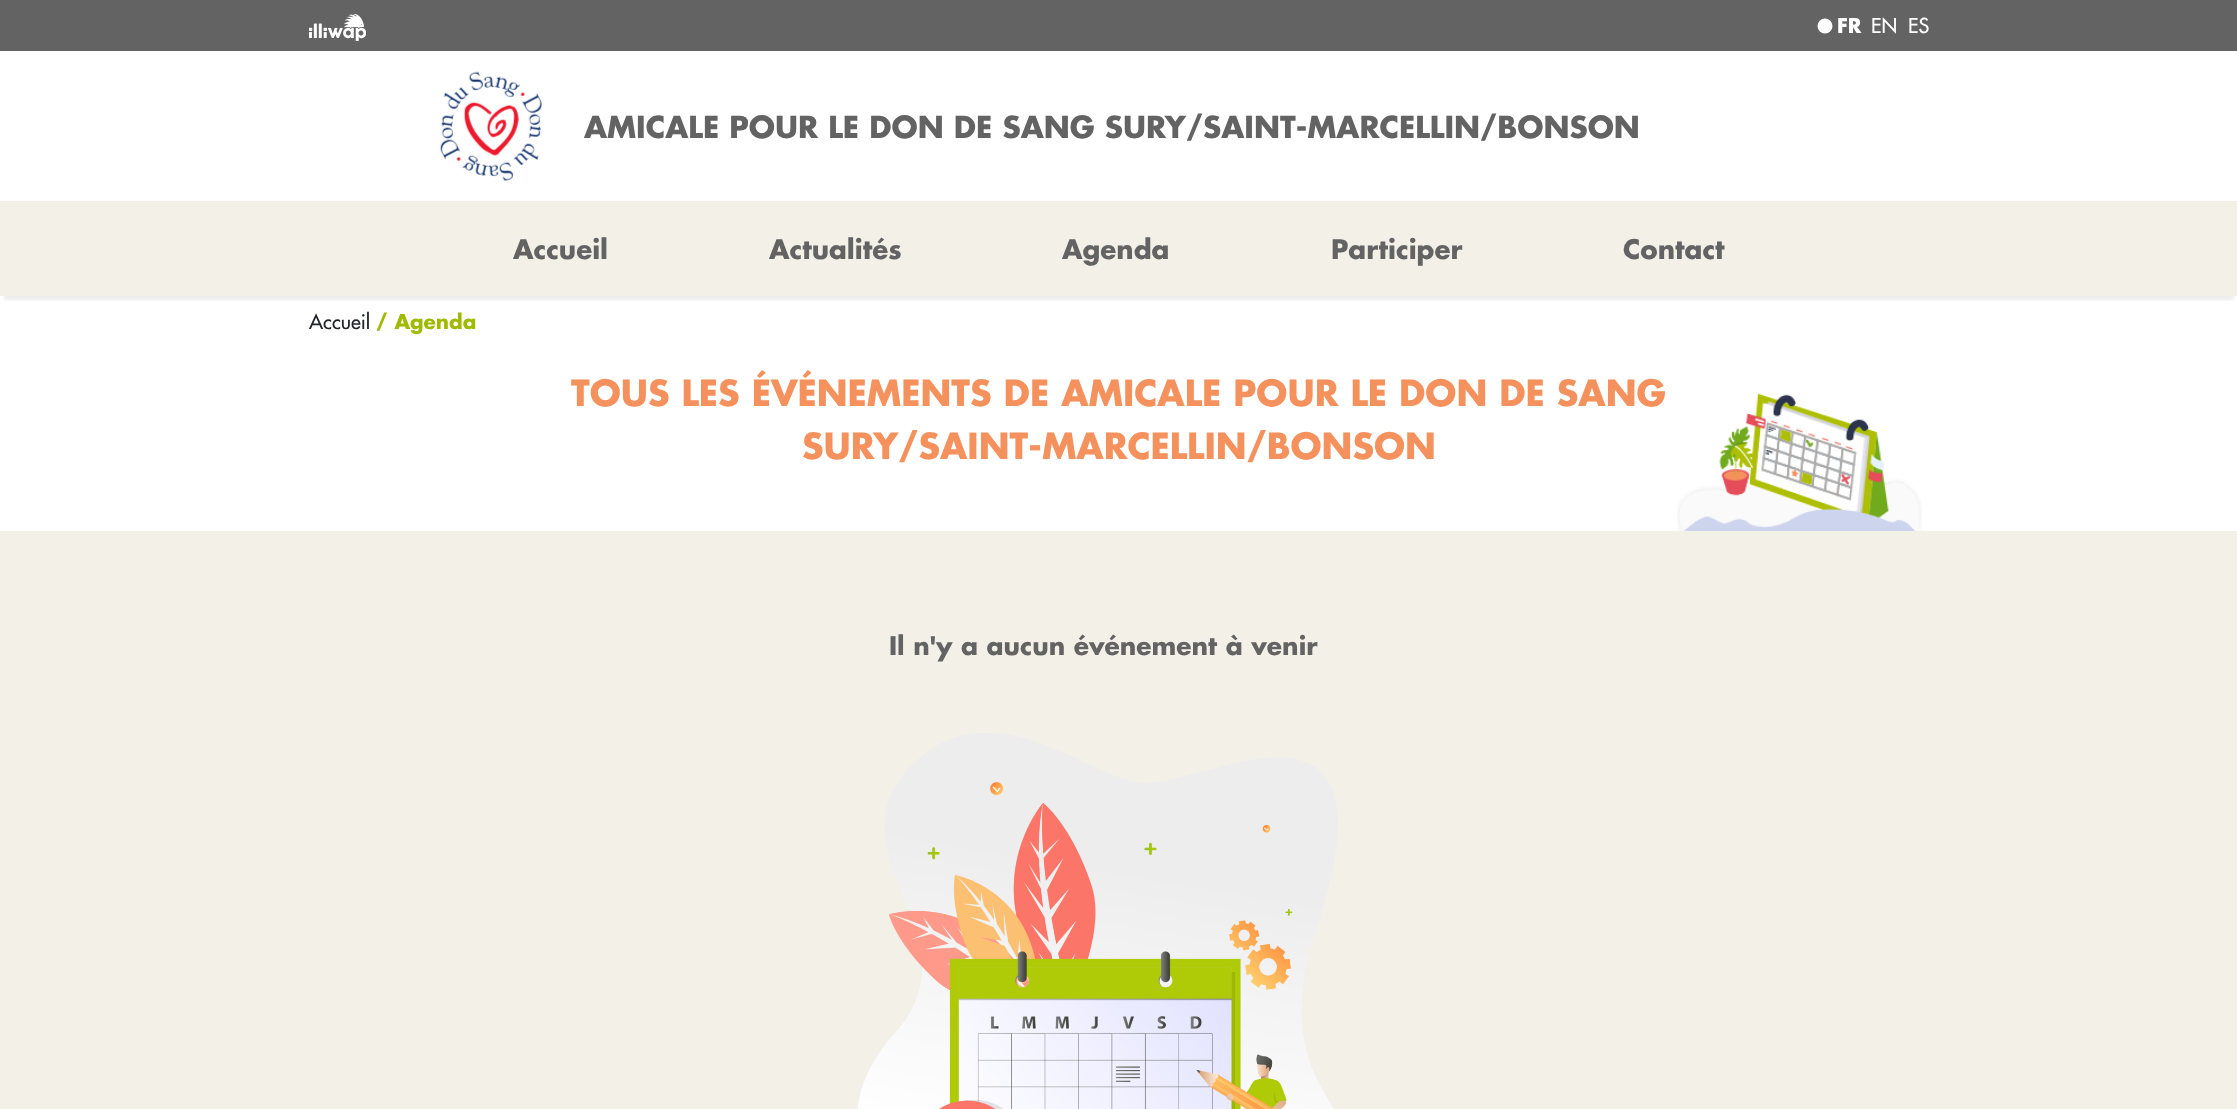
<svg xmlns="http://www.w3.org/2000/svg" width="2237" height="1109">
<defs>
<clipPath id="clip1"><rect x="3" y="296" width="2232" height="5"/></clipPath>
</defs>
<rect width="100%" height="100%" fill="#fff"/>
<g clip-path="url(#clip1)">
<rect x="4" y="11" width="2230" height="289" fill="#00000014" filter="blur(2px)"/>
</g>
<rect width="2237" height="51" fill="#646363"/>
<image x="309" y="14" width="57" height="27" href="media/1.png"/>
<circle cx="1825" cy="26" r="7.5" fill="#fff"/>
<text x="1837" y="33" style="font-family:Futura;font-size:20px;font-weight:bold;fill:#fff">FR</text>
<text x="1871" y="33" style="font-family:Futura;font-size:20px;fill:#fff">EN</text>
<text x="1908" y="33" style="font-family:Futura;font-size:20px;fill:#fff">ES</text>
<image x="440" y="71" width="102" height="110" href="media/2.png"/>
<text x="584" y="138" style="font-family:Futura;font-size:29.55px;font-weight:bold;fill:#646363">AMICALE POUR LE DON DE SANG SURY/SAINT-MARCELLIN/BONSON</text>
<rect y="201" width="2237" height="95" fill="#f3f0e8"/>
<text x="513" y="259" style="font-family:Futura;font-size:26.25px;font-weight:bold;fill:#646363">Accueil</text>
<text x="769" y="259" style="font-family:Futura;font-size:26.25px;font-weight:bold;fill:#646363">Actualités</text>
<text x="1062" y="259" style="font-family:Futura;font-size:26.25px;font-weight:bold;fill:#646363">Agenda</text>
<text x="1331" y="259" style="font-family:Futura;font-size:26.25px;font-weight:bold;fill:#646363">Participer</text>
<text x="1623" y="259" style="font-family:Futura;font-size:26.25px;font-weight:bold;fill:#646363">Contact</text>
<text x="309" y="329" style="font-family:Futura;font-size:20px;fill:#212529">Accueil</text>
<text x="376" y="329" style="font-family:Futura;font-size:20px;font-weight:bold;fill:#9fba00">/ Agenda</text>
<image x="1677" y="393" width="245" height="138" href="media/3.png"/>
<text x="571" y="406" style="font-family:Futura;font-size:35px;font-weight:bold;fill:#f4915d">TOUS LES ÉVÉNEMENTS DE AMICALE POUR LE DON DE SANG</text>
<text x="802" y="459" style="font-family:Futura;font-size:35px;font-weight:bold;fill:#f4915d">SURY/SAINT-MARCELLIN/BONSON</text>
<rect y="531" width="2237" height="578" fill="#f3f0e8"/>
<text x="889" y="655" style="font-family:Futura;font-size:25px;font-weight:bold;fill:#646363">Il n'y a aucun événement à venir</text>
<image x="857" y="733" width="481" height="376" href="media/4.png"/>
</svg>
